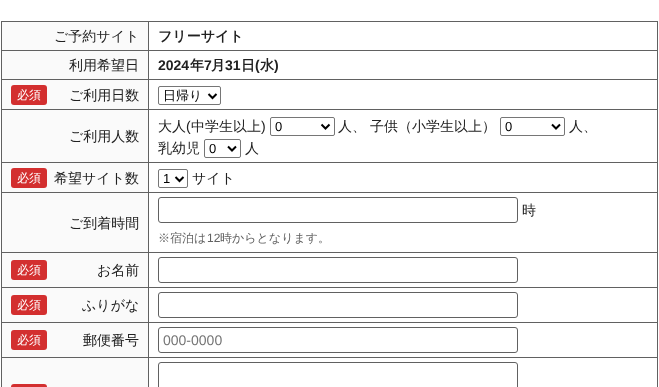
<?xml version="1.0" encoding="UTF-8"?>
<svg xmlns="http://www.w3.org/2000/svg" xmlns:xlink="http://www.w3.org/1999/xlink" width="659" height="387">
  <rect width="100%" height="100%" fill="#ffffff" />
  <rect x="2" y="22" width="146" height="28" fill="#fafafa" />
  <rect x="148" y="21" width="510" height="1" fill="#616161" />
  <rect x="148" y="50" width="510" height="1" fill="#616161" />
  <rect x="148" y="79" width="510" height="1" fill="#616161" />
  <rect x="148" y="109" width="510" height="1" fill="#616161" />
  <rect x="148" y="162" width="510" height="1" fill="#616161" />
  <rect x="148" y="192" width="510" height="1" fill="#616161" />
  <rect x="148" y="252" width="510" height="1" fill="#616161" />
  <rect x="148" y="287" width="510" height="1" fill="#616161" />
  <rect x="148" y="322" width="510" height="1" fill="#616161" />
  <rect x="148" y="357" width="510" height="1" fill="#616161" />
  <rect x="148" y="357" width="1" height="30" fill="#616161" />
  <rect x="1" y="357" width="148" height="1" fill="#616161" />
  <rect x="148" y="322" width="1" height="36" fill="#616161" />
  <rect x="1" y="322" width="148" height="1" fill="#616161" />
  <rect x="148" y="287" width="1" height="36" fill="#616161" />
  <rect x="1" y="287" width="148" height="1" fill="#616161" />
  <rect x="148" y="252" width="1" height="36" fill="#616161" />
  <rect x="1" y="252" width="148" height="1" fill="#616161" />
  <rect x="148" y="192" width="1" height="61" fill="#616161" />
  <rect x="1" y="192" width="148" height="1" fill="#616161" />
  <rect x="148" y="162" width="1" height="31" fill="#616161" />
  <rect x="1" y="162" width="148" height="1" fill="#616161" />
  <rect x="148" y="109" width="1" height="54" fill="#616161" />
  <rect x="1" y="109" width="148" height="1" fill="#616161" />
  <rect x="148" y="79" width="1" height="31" fill="#616161" />
  <rect x="1" y="79" width="148" height="1" fill="#616161" />
  <rect x="148" y="50" width="1" height="30" fill="#616161" />
  <rect x="1" y="50" width="148" height="1" fill="#616161" />
  <rect x="148" y="21" width="1" height="30" fill="#616161" />
  <rect x="1" y="21" width="148" height="1" fill="#616161" />
  <rect x="1" y="357" width="1" height="30" fill="#616161" />
  <rect x="1" y="322" width="1" height="36" fill="#616161" />
  <rect x="1" y="287" width="1" height="36" fill="#616161" />
  <rect x="1" y="252" width="1" height="36" fill="#616161" />
  <rect x="1" y="192" width="1" height="61" fill="#616161" />
  <rect x="1" y="162" width="1" height="31" fill="#616161" />
  <rect x="1" y="109" width="1" height="54" fill="#616161" />
  <rect x="1" y="79" width="1" height="31" fill="#616161" />
  <rect x="1" y="50" width="1" height="30" fill="#616161" />
  <rect x="1" y="21" width="1" height="30" fill="#616161" />
  <rect x="657" y="357" width="1" height="30" fill="#616161" />
  <rect x="657" y="322" width="1" height="36" fill="#616161" />
  <rect x="657" y="287" width="1" height="36" fill="#616161" />
  <rect x="657" y="252" width="1" height="36" fill="#616161" />
  <rect x="657" y="192" width="1" height="61" fill="#616161" />
  <rect x="657" y="162" width="1" height="31" fill="#616161" />
  <rect x="657" y="109" width="1" height="54" fill="#616161" />
  <rect x="657" y="79" width="1" height="31" fill="#616161" />
  <rect x="657" y="50" width="1" height="30" fill="#616161" />
  <rect x="657" y="21" width="1" height="30" fill="#616161" />
  <rect x="2" y="51" width="146" height="28" fill="#fafafa" />
  <rect x="2" y="80" width="146" height="29" fill="#fafafa" />
  <rect x="11" y="85" width="36" height="20" rx="3" fill="#d32f2f" />
  <rect x="158.5" y="86.5" width="62" height="18" rx="1.5" fill="none" stroke="#767676" />
  <path d="M 208.5 94 l 4 4 l 4 -4" fill="none" stroke="#000000" stroke-width="2" />
  <rect x="2" y="110" width="146" height="52" fill="#fafafa" />
  <rect x="270.5" y="117.5" width="64" height="18" rx="1.5" fill="none" stroke="#767676" />
  <path d="M 321.5 124.5 l 4 4 l 4 -4" fill="none" stroke="#000000" stroke-width="2" />
  <rect x="500.5" y="117.5" width="64" height="18" rx="1.5" fill="none" stroke="#767676" />
  <path d="M 552 124.5 l 4 4 l 4 -4" fill="none" stroke="#000000" stroke-width="2" />
  <rect x="204.5" y="139.5" width="36" height="18" rx="1.5" fill="none" stroke="#767676" />
  <path d="M 228 146.5 l 4 4 l 4 -4" fill="none" stroke="#000000" stroke-width="2" />
  <rect x="2" y="163" width="146" height="29" fill="#fafafa" />
  <rect x="11" y="168" width="36" height="20" rx="3" fill="#d32f2f" />
  <rect x="158.5" y="169.5" width="29" height="18" rx="1.5" fill="none" stroke="#767676" />
  <path d="M 175.5 177 l 4 4 l 4 -4" fill="none" stroke="#000000" stroke-width="2" />
  <rect x="2" y="193" width="146" height="59" fill="#fafafa" />
  <rect x="158.5" y="197.5" width="359" height="25" rx="2.5" fill="none" stroke="#616161" />
  <rect x="2" y="253" width="146" height="34" fill="#fafafa" />
  <rect x="11" y="260" width="36" height="20" rx="3" fill="#d32f2f" />
  <rect x="158.5" y="257.5" width="359" height="25" rx="2.5" fill="none" stroke="#616161" />
  <rect x="2" y="288" width="146" height="34" fill="#fafafa" />
  <rect x="11" y="295" width="36" height="20" rx="3" fill="#d32f2f" />
  <rect x="158.5" y="292.5" width="359" height="25" rx="2.5" fill="none" stroke="#616161" />
  <rect x="2" y="323" width="146" height="34" fill="#fafafa" />
  <rect x="11" y="330" width="36" height="20" rx="3" fill="#d32f2f" />
  <rect x="158.5" y="327.5" width="359" height="25" rx="2.5" fill="none" stroke="#616161" />
  <rect x="2" y="358" width="146" height="29" fill="#fafafa" />
  <rect x="11" y="384" width="36" height="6" rx="3" fill="#d32f2f" />
  <rect x="158.5" y="362.5" width="359" height="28" rx="2.5" fill="none" stroke="#616161" />
  <text x="54" y="41" style="font-family: WenQuanYi Zen Hei; font-size: 14px; font-weight: 500; fill: #212121">ご予約サイト</text>
  <text x="158" y="41" style="font-family: WenQuanYi Zen Hei; font-size: 14px; font-weight: bold; fill: #212121">フリーサイト</text>
  <text x="69" y="70" style="font-family: WenQuanYi Zen Hei; font-size: 14px; font-weight: 500; fill: #212121">利用希望日</text>
  <text x="158" y="70" style="font-family: Liberation Sans; font-size: 14px; font-weight: bold; fill: #212121">2024</text>
  <text x="190" y="70" style="font-family: WenQuanYi Zen Hei; font-size: 14px; font-weight: bold; fill: #212121">年</text>
  <text x="204" y="70" style="font-family: Liberation Sans; font-size: 14px; font-weight: bold; fill: #212121">7</text>
  <text x="211" y="70" style="font-family: WenQuanYi Zen Hei; font-size: 14px; font-weight: bold; fill: #212121">月</text>
  <text x="225" y="70" style="font-family: Liberation Sans; font-size: 14px; font-weight: bold; fill: #212121">31</text>
  <text x="241" y="70" style="font-family: WenQuanYi Zen Hei; font-size: 14px; font-weight: bold; fill: #212121">日</text>
  <text x="255" y="70" style="font-family: Liberation Sans; font-size: 14px; font-weight: bold; fill: #212121">(</text>
  <text x="260" y="70" style="font-family: WenQuanYi Zen Hei; font-size: 14px; font-weight: bold; fill: #212121">水</text>
  <text x="274" y="70" style="font-family: Liberation Sans; font-size: 14px; font-weight: bold; fill: #212121">)</text>
  <text x="17" y="99" style="font-family: WenQuanYi Zen Hei; font-size: 12px; font-weight: 500; fill: #ffffff">必須</text>
  <text x="69" y="100" style="font-family: WenQuanYi Zen Hei; font-size: 14px; font-weight: 500; fill: #212121">ご利用日数</text>
  <text x="163" y="100" style="font-family: WenQuanYi Zen Hei; font-size: 13px; font-weight: 500; fill: #000000">日帰り</text>
  <text x="69" y="141" style="font-family: WenQuanYi Zen Hei; font-size: 14px; font-weight: 500; fill: #212121">ご利用人数</text>
  <text x="158" y="131" style="font-family: WenQuanYi Zen Hei; font-size: 14px; font-weight: 500; fill: #212121">大人</text>
  <text x="186" y="131" style="font-family: Liberation Sans; font-size: 14px; fill: #212121">(</text>
  <text x="191" y="131" style="font-family: WenQuanYi Zen Hei; font-size: 14px; font-weight: 500; fill: #212121">中学生以上</text>
  <text x="261" y="131" style="font-family: Liberation Sans; font-size: 14px; fill: #212121">)</text>
  <text x="275" y="131" style="font-family: Liberation Sans; font-size: 13px; fill: #000000">0</text>
  <text x="338" y="131" style="font-family: WenQuanYi Zen Hei; font-size: 14px; font-weight: 500; fill: #212121">人、</text>
  <text x="370" y="131" style="font-family: WenQuanYi Zen Hei; font-size: 14px; font-weight: 500; fill: #212121">子供（小学生以上）</text>
  <text x="505" y="131" style="font-family: Liberation Sans; font-size: 13px; fill: #000000">0</text>
  <text x="569" y="131" style="font-family: WenQuanYi Zen Hei; font-size: 14px; font-weight: 500; fill: #212121">人、</text>
  <text x="158" y="153" style="font-family: WenQuanYi Zen Hei; font-size: 14px; font-weight: 500; fill: #212121">乳幼児</text>
  <text x="209" y="153" style="font-family: Liberation Sans; font-size: 13px; fill: #000000">0</text>
  <text x="245" y="153" style="font-family: WenQuanYi Zen Hei; font-size: 14px; font-weight: 500; fill: #212121">人</text>
  <text x="17" y="182" style="font-family: WenQuanYi Zen Hei; font-size: 12px; font-weight: 500; fill: #ffffff">必須</text>
  <text x="54" y="183" style="font-family: WenQuanYi Zen Hei; font-size: 14px; font-weight: 500; fill: #212121">希望サイト数</text>
  <text x="163" y="183" style="font-family: Liberation Sans; font-size: 13px; fill: #000000">1</text>
  <text x="192" y="183" style="font-family: WenQuanYi Zen Hei; font-size: 14px; font-weight: 500; fill: #212121">サイト</text>
  <text x="69" y="228" style="font-family: WenQuanYi Zen Hei; font-size: 14px; font-weight: 500; fill: #212121">ご到着時間</text>
  <text x="522" y="215" style="font-family: WenQuanYi Zen Hei; font-size: 14px; font-weight: 500; fill: #212121">時</text>
  <text x="158" y="242" style="font-family: WenQuanYi Zen Hei; font-size: 12px; font-weight: 500; fill: #616161">※宿泊は</text>
  <text x="207" y="242" style="font-family: Liberation Sans; font-size: 12px; fill: #616161">12</text>
  <text x="220" y="242" style="font-family: WenQuanYi Zen Hei; font-size: 12px; font-weight: 500; fill: #616161">時からとなります。</text>
  <text x="17" y="274" style="font-family: WenQuanYi Zen Hei; font-size: 12px; font-weight: 500; fill: #ffffff">必須</text>
  <text x="97" y="275" style="font-family: WenQuanYi Zen Hei; font-size: 14px; font-weight: 500; fill: #212121">お名前</text>
  <text x="17" y="309" style="font-family: WenQuanYi Zen Hei; font-size: 12px; font-weight: 500; fill: #ffffff">必須</text>
  <text x="82" y="310" style="font-family: WenQuanYi Zen Hei; font-size: 14px; font-weight: 500; fill: #212121">ふりがな</text>
  <text x="17" y="344" style="font-family: WenQuanYi Zen Hei; font-size: 12px; font-weight: 500; fill: #ffffff">必須</text>
  <text x="83" y="345" style="font-family: WenQuanYi Zen Hei; font-size: 14px; font-weight: 500; fill: #212121">郵便番号</text>
  <text x="163" y="345" style="font-family: Liberation Sans; font-size: 14px; fill: #757575">000-0000</text>
</svg>
